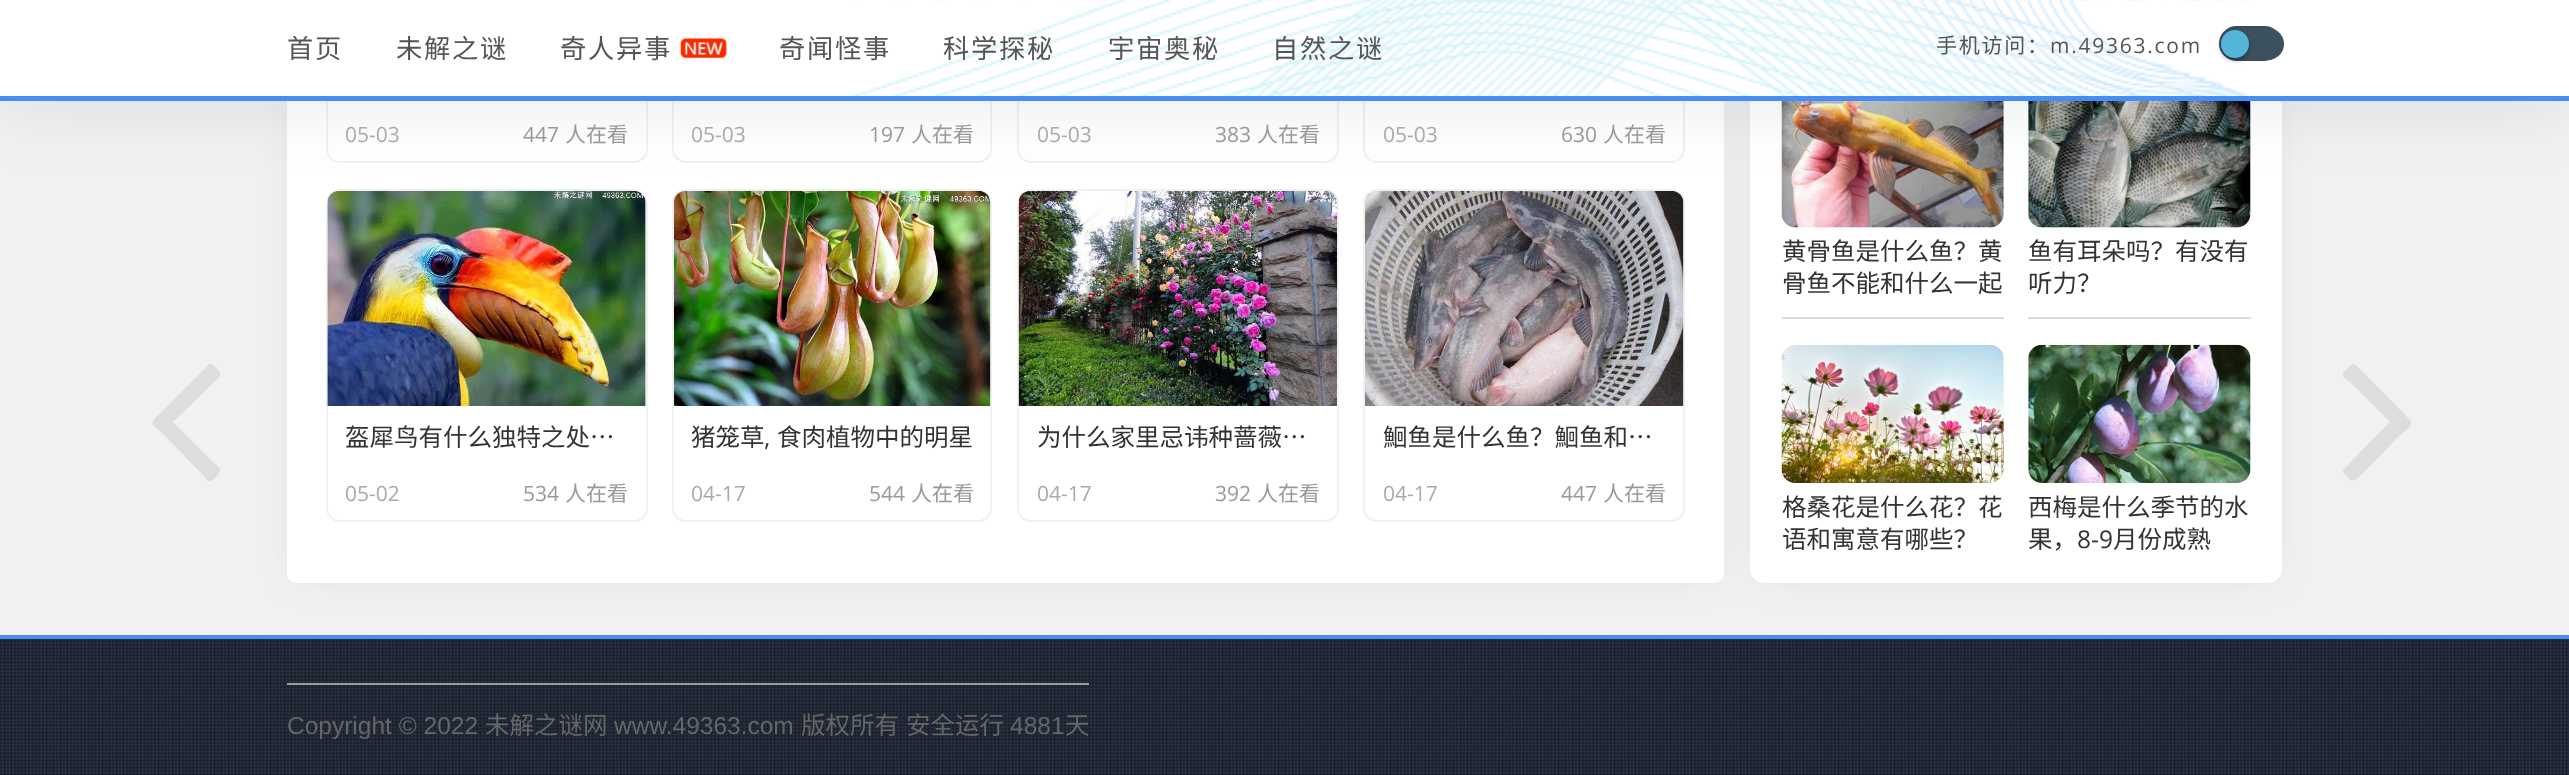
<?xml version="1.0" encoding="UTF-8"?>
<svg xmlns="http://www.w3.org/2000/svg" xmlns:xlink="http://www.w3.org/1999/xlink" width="2569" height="775">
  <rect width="100%" height="100%" fill="#f1f1f1" />
  <rect x="296" y="-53" width="1419" height="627" fill="#9e9e9e" fill-opacity="0.22" filter="blur(17.5px)" />
  <rect x="287" y="-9" width="1437" height="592" rx="9" fill="#ffffff" />
  <rect x="327" y="-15" width="320" height="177" rx="13" fill="none" stroke="#f1f1f1" stroke-width="2" />
  <rect x="673" y="-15" width="318" height="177" rx="13" fill="none" stroke="#f1f1f1" stroke-width="2" />
  <rect x="1018" y="-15" width="320" height="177" rx="13" fill="none" stroke="#f1f1f1" stroke-width="2" />
  <rect x="1364" y="-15" width="320" height="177" rx="13" fill="none" stroke="#f1f1f1" stroke-width="2" />
  <rect x="327" y="190" width="320" height="331" rx="13" fill="none" stroke="#f1f1f1" stroke-width="2" />
  <image x="327" y="191" width="319" height="215" xlink:href="image3.png" />
  <rect x="673" y="190" width="318" height="331" rx="13" fill="none" stroke="#f1f1f1" stroke-width="2" />
  <image x="674" y="191" width="317" height="215" xlink:href="image4.png" />
  <rect x="1018" y="190" width="320" height="331" rx="13" fill="none" stroke="#f1f1f1" stroke-width="2" />
  <image x="1018" y="191" width="319" height="215" xlink:href="image5.png" />
  <rect x="1364" y="190" width="320" height="331" rx="13" fill="none" stroke="#f1f1f1" stroke-width="2" />
  <image x="1365" y="191" width="319" height="215" xlink:href="image6.png" />
  <rect x="1759" y="-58" width="514" height="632" rx="5" fill="#9e9e9e" fill-opacity="0.22" filter="blur(17.5px)" />
  <rect x="1750" y="-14" width="532" height="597" rx="14" fill="#ffffff" />
  <rect x="1782" y="88" width="222" height="140" rx="14" fill="#f8f9fa" />
  <image x="1781" y="101" width="223" height="127" xlink:href="image7.png" />
  <rect x="2028" y="88" width="223" height="140" rx="14" fill="#f8f9fa" />
  <image x="2028" y="101" width="223" height="127" xlink:href="image8.png" />
  <rect y="9" width="2569" height="98" fill="#113a5d" fill-opacity="0.1" filter="blur(35px)" />
  <rect width="2569" height="96" fill="#ffffff" />
  <image x="852" y="0" width="1397" height="96" xlink:href="image1.png" />
  <image x="680" y="38" width="47" height="21" xlink:href="image2.png" />
  <rect x="2220" y="27" width="61" height="33" rx="16.5" fill="#3b5160" stroke="#394e5d" stroke-width="2" />
  <rect x="2221" y="28" width="63" height="32" rx="16" fill="#3b5160" />
  <rect x="2221" y="32" width="28" height="28" rx="14" fill="#000000" fill-opacity="0.4" filter="blur(2.5px)" />
  <circle cx="2235" cy="44" r="14" fill="#54b5db" />
  <rect y="96" width="2569" height="5" fill="#448ef6" />
  <path d="M 219 371 c 5 5 -6 12 -7 13 l -39 38 l 39 39 c 5 5 12 8 6 14 c -10 10 -8 7 -19 -4 l -36 -37 c -14 -13 -14 -10 0 -23 l 45 -46 c 4 -4 9 4 11 6 z" fill="#dddddd" />
  <path d="M 2410 420 c 5 5 -8 14 -9 14 l -36 37 c -1 0 -10 13 -15 9 l -3 -4 c -3 -2 -6 -5 -3 -7 l 46 -47 l -38 -38 c -8 -7 -13 -8 -5 -15 c 8 -9 7 -5 18 5 z" fill="#dddddd" />
  <rect x="1782" y="317" width="222" height="2" fill="#dddddd" />
  <rect x="2028" y="317" width="223" height="2" fill="#dddddd" />
  <rect x="1782" y="345" width="222" height="138" rx="14" fill="#f8f9fa" />
  <image x="1781" y="344" width="223" height="139" xlink:href="image9.png" />
  <rect x="2028" y="345" width="223" height="138" rx="14" fill="#f8f9fa" />
  <image x="2028" y="344" width="223" height="139" xlink:href="image10.png" />
  <image x="0" y="639" width="2569" height="136" xlink:href="image11.png" />
  <rect y="635" width="2569" height="4" fill="#448ef6" />
  <rect x="287" y="683" width="802" height="2" fill="#999999" />
  <text x="287" y="58" style="font-family: Noto Sans CJK SC; font-size: 26.25px; letter-spacing: 1.75px; fill: #555555">首页</text>
  <text x="396" y="58" style="font-family: Noto Sans CJK SC; font-size: 26.25px; letter-spacing: 1.75px; fill: #555555">未解之谜</text>
  <text x="560" y="58" style="font-family: Noto Sans CJK SC; font-size: 26.25px; letter-spacing: 1.75px; fill: #555555">奇人异事</text>
  <text x="779" y="58" style="font-family: Noto Sans CJK SC; font-size: 26.25px; letter-spacing: 1.75px; fill: #555555">奇闻怪事</text>
  <text x="943" y="58" style="font-family: Noto Sans CJK SC; font-size: 26.25px; letter-spacing: 1.75px; fill: #555555">科学探秘</text>
  <text x="1108" y="58" style="font-family: Noto Sans CJK SC; font-size: 26.25px; letter-spacing: 1.75px; fill: #555555">宇宙奥秘</text>
  <text x="1272" y="58" style="font-family: Noto Sans CJK SC; font-size: 26.25px; letter-spacing: 1.75px; fill: #555555">自然之谜</text>
  <text x="1936" y="53" style="font-family: Noto Sans CJK SC; font-size: 21px; letter-spacing: 1.75px; fill: #555555">手机访问：</text>
  <text x="2050" y="53" style="font-family: Open Sans; font-size: 21px; letter-spacing: 1.75px; fill: #555555">m.49363.com</text>
  <text x="345" y="142" style="font-family: Open Sans; font-size: 21px; fill: #aaaaaa">05-03</text>
  <text x="523" y="142" style="font-family: Open Sans; font-size: 21px; fill: #999999">447</text>
  <text x="565" y="142" style="font-family: Noto Sans CJK SC; font-size: 21px; fill: #999999">人在看</text>
  <text x="691" y="142" style="font-family: Open Sans; font-size: 21px; fill: #aaaaaa">05-03</text>
  <text x="869" y="142" style="font-family: Open Sans; font-size: 21px; fill: #999999">197</text>
  <text x="911" y="142" style="font-family: Noto Sans CJK SC; font-size: 21px; fill: #999999">人在看</text>
  <text x="1037" y="142" style="font-family: Open Sans; font-size: 21px; fill: #aaaaaa">05-03</text>
  <text x="1215" y="142" style="font-family: Open Sans; font-size: 21px; fill: #999999">383</text>
  <text x="1257" y="142" style="font-family: Noto Sans CJK SC; font-size: 21px; fill: #999999">人在看</text>
  <text x="1383" y="142" style="font-family: Open Sans; font-size: 21px; fill: #aaaaaa">05-03</text>
  <text x="1561" y="142" style="font-family: Open Sans; font-size: 21px; fill: #999999">630</text>
  <text x="1603" y="142" style="font-family: Noto Sans CJK SC; font-size: 21px; fill: #999999">人在看</text>
  <text x="345" y="446" style="font-family: Noto Sans CJK SC; font-size: 24.5px; fill: #333333">盔犀鸟有什么独特之处…</text>
  <text x="345" y="501" style="font-family: Open Sans; font-size: 21px; fill: #aaaaaa">05-02</text>
  <text x="523" y="501" style="font-family: Open Sans; font-size: 21px; fill: #999999">534</text>
  <text x="565" y="501" style="font-family: Noto Sans CJK SC; font-size: 21px; fill: #999999">人在看</text>
  <text x="691" y="446" style="font-family: Noto Sans CJK SC; font-size: 24.5px; fill: #333333">猪笼草</text>
  <text x="764" y="446" style="font-family: Open Sans; font-size: 24.5px; fill: #333333">,</text>
  <text x="777" y="446" style="font-family: Noto Sans CJK SC; font-size: 24.5px; fill: #333333">食肉植物中的明星</text>
  <text x="691" y="501" style="font-family: Open Sans; font-size: 21px; fill: #aaaaaa">04-17</text>
  <text x="869" y="501" style="font-family: Open Sans; font-size: 21px; fill: #999999">544</text>
  <text x="911" y="501" style="font-family: Noto Sans CJK SC; font-size: 21px; fill: #999999">人在看</text>
  <text x="1037" y="446" style="font-family: Noto Sans CJK SC; font-size: 24.5px; fill: #333333">为什么家里忌讳种蔷薇…</text>
  <text x="1037" y="501" style="font-family: Open Sans; font-size: 21px; fill: #aaaaaa">04-17</text>
  <text x="1215" y="501" style="font-family: Open Sans; font-size: 21px; fill: #999999">392</text>
  <text x="1257" y="501" style="font-family: Noto Sans CJK SC; font-size: 21px; fill: #999999">人在看</text>
  <text x="1383" y="446" style="font-family: Noto Sans CJK SC; font-size: 24.5px; fill: #333333">鮰鱼是什么鱼？鮰鱼和…</text>
  <text x="1383" y="501" style="font-family: Open Sans; font-size: 21px; fill: #aaaaaa">04-17</text>
  <text x="1561" y="501" style="font-family: Open Sans; font-size: 21px; fill: #999999">447</text>
  <text x="1603" y="501" style="font-family: Noto Sans CJK SC; font-size: 21px; fill: #999999">人在看</text>
  <text x="1782" y="260" style="font-family: Noto Sans CJK SC; font-size: 24.5px; fill: #333333">黄骨鱼是什么鱼？黄</text>
  <text x="1782" y="292" style="font-family: Noto Sans CJK SC; font-size: 24.5px; fill: #333333">骨鱼不能和什么一起</text>
  <text x="2028" y="260" style="font-family: Noto Sans CJK SC; font-size: 24.5px; fill: #333333">鱼有耳朵吗？有没有</text>
  <text x="2028" y="292" style="font-family: Noto Sans CJK SC; font-size: 24.5px; fill: #333333">听力？</text>
  <text x="1782" y="516" style="font-family: Noto Sans CJK SC; font-size: 24.5px; fill: #333333">格桑花是什么花？花</text>
  <text x="1782" y="548" style="font-family: Noto Sans CJK SC; font-size: 24.5px; fill: #333333">语和寓意有哪些？</text>
  <text x="2028" y="516" style="font-family: Noto Sans CJK SC; font-size: 24.5px; fill: #333333">西梅是什么季节的水</text>
  <text x="2028" y="548" style="font-family: Noto Sans CJK SC; font-size: 24.5px; fill: #333333">果，</text>
  <text x="2077" y="548" style="font-family: Open Sans; font-size: 24.5px; fill: #333333">8-9</text>
  <text x="2113" y="548" style="font-family: Noto Sans CJK SC; font-size: 24.5px; fill: #333333">月份成熟</text>
  <text x="287" y="734" style="font-family: Liberation Sans; font-size: 24.5px; fill: #666666">Copyright © 2022</text>
  <text x="485" y="734" style="font-family: Noto Sans CJK SC; font-size: 24.5px; fill: #666666">未解之谜网</text>
  <text x="614" y="734" style="font-family: Liberation Sans; font-size: 24.5px; fill: #666666">www.49363.com</text>
  <text x="801" y="734" style="font-family: Noto Sans CJK SC; font-size: 24.5px; fill: #666666">版权所有</text>
  <text x="906" y="734" style="font-family: Noto Sans CJK SC; font-size: 24.5px; fill: #666666">安全运行</text>
  <text x="1010" y="734" style="font-family: Liberation Sans; font-size: 24.5px; fill: #666666">4881</text>
  <text x="1065" y="734" style="font-family: Noto Sans CJK SC; font-size: 24.5px; fill: #666666">天</text>
</svg>
